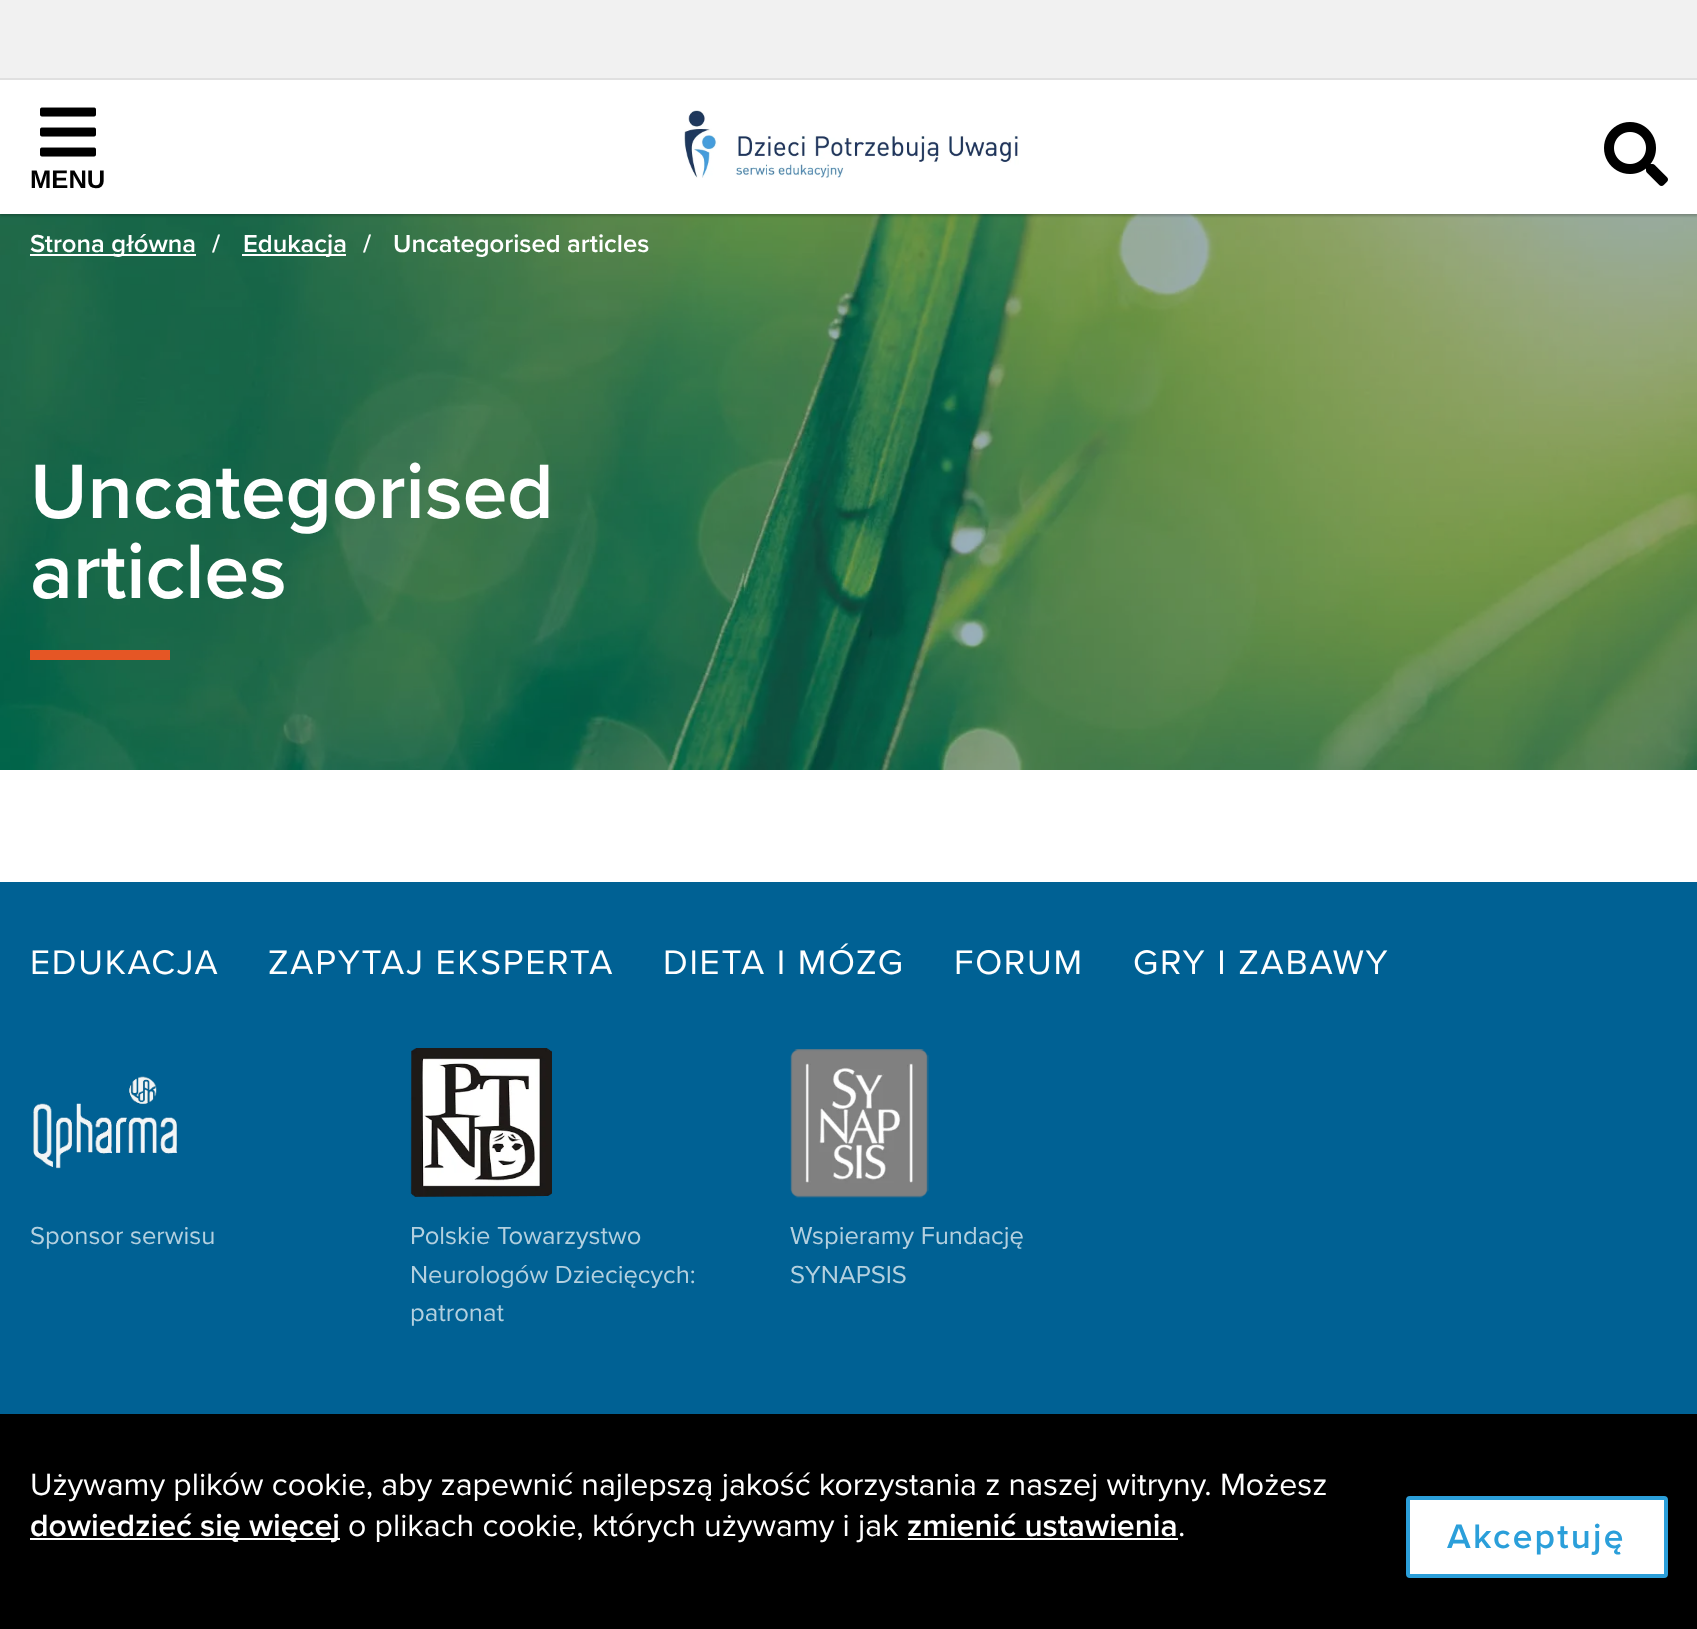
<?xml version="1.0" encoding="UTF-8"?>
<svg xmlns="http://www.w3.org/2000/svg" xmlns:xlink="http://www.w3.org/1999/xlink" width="1697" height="1629">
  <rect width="100%" height="100%" fill="#ffffff" />
  <image x="0" y="214" width="1697" height="556" xlink:href="image4.png" />
  <rect y="2" width="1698" height="214" fill="#000000" fill-opacity="0.2" filter="blur(1px)" />
  <rect y="80" width="1697" height="134" fill="#ffffff" />
  <rect width="1697" height="78" fill="#f1f1f1" />
  <rect y="78" width="1697" height="2" fill="#e0e0e0" />
  <image x="1604" y="122" width="64" height="64" xlink:href="image1.png" />
  <image x="684" y="110" width="335" height="68" xlink:href="image2.png" />
  <image x="40" y="107" width="56" height="50" xlink:href="image3.png" />
  <rect x="30" y="254" width="166" height="2" fill="#ffffff" />
  <rect x="242" y="254" width="104" height="2" fill="#ffffff" />
  <rect x="30" y="650" width="140" height="10" fill="#e55625" />
  <rect y="882" width="1697" height="532" fill="#006194" />
  <image x="33" y="1076" width="145" height="93" xlink:href="image5.png" />
  <image x="410" y="1048" width="142" height="149" xlink:href="image6.png" />
  <image x="790" y="1049" width="139" height="149" xlink:href="image7.png" />
  <rect y="1414" width="1697" height="215" fill="#000000" />
  <rect x="30" y="1538" width="310" height="2" fill="#ffffff" />
  <rect x="908" y="1538" width="270" height="2" fill="#ffffff" />
  <rect x="1408" y="1498" width="258" height="78" rx="2" fill="#ffffff" stroke="#2b9fda" stroke-width="4" />
  <text x="30" y="188" style="font-family: Liberation Sans; font-size: 25.6px; font-weight: bold; fill: #000000">MENU</text>
  <text x="30" y="252" style="font-family: Proxima Nova; font-size: 25.6px; font-weight: 600; fill: #ffffff">Strona główna</text>
  <text x="212" y="252" style="font-family: Proxima Nova; font-size: 25.6px; font-weight: 600; fill: #ffffff">/</text>
  <text x="243" y="252" style="font-family: Proxima Nova; font-size: 25.6px; font-weight: 600; fill: #ffffff">Edukacja</text>
  <text x="363" y="252" style="font-family: Proxima Nova; font-size: 25.6px; font-weight: 600; fill: #ffffff">/</text>
  <text x="393" y="252" style="font-family: Proxima Nova; font-size: 25.6px; font-weight: 600; fill: #ffffff">Uncategorised articles</text>
  <text x="30" y="518" style="font-family: Proxima Nova; font-size: 80px; font-weight: 600; fill: #ffffff">Uncategorised</text>
  <text x="30" y="598" style="font-family: Proxima Nova; font-size: 80px; font-weight: 600; fill: #ffffff">articles</text>
  <text x="30" y="974" style="font-family: Proxima Nova; font-size: 35.25px; letter-spacing: 1.75px; fill: #ffffff">EDUKACJA</text>
  <text x="268" y="974" style="font-family: Proxima Nova; font-size: 35.25px; letter-spacing: 1.75px; fill: #ffffff">ZAPYTAJ EKSPERTA</text>
  <text x="663" y="974" style="font-family: Proxima Nova; font-size: 35.25px; letter-spacing: 1.75px; fill: #ffffff">DIETA I MÓZG</text>
  <text x="954" y="974" style="font-family: Proxima Nova; font-size: 35.25px; letter-spacing: 1.75px; fill: #ffffff">FORUM</text>
  <text x="1133" y="974" style="font-family: Proxima Nova; font-size: 35.25px; letter-spacing: 1.75px; fill: #ffffff">GRY I ZABAWY</text>
  <text x="30" y="1244" style="font-family: Proxima Nova; font-size: 25.6px; fill: #b3d0df">Sponsor serwisu</text>
  <text x="410" y="1244" style="font-family: Proxima Nova; font-size: 25.6px; fill: #b3d0df">Polskie Towarzystwo</text>
  <text x="410" y="1283" style="font-family: Proxima Nova; font-size: 25.6px; fill: #b3d0df">Neurologów Dziecięcych:</text>
  <text x="410" y="1321" style="font-family: Proxima Nova; font-size: 25.6px; fill: #b3d0df">patronat</text>
  <text x="790" y="1244" style="font-family: Proxima Nova; font-size: 25.6px; fill: #b3d0df">Wspieramy Fundację</text>
  <text x="790" y="1283" style="font-family: Proxima Nova; font-size: 25.6px; fill: #b3d0df">SYNAPSIS</text>
  <text x="30" y="1495" style="font-family: Proxima Nova; font-size: 32px; fill: #ffffff">Używamy plików cookie, aby zapewnić najlepszą jakość korzystania z naszej witryny. Możesz</text>
  <text x="30" y="1536" style="font-family: Proxima Nova; font-size: 32px; font-weight: 600; fill: #ffffff">dowiedzieć się więcej</text>
  <text x="348" y="1536" style="font-family: Proxima Nova; font-size: 32px; fill: #ffffff">o plikach cookie, których używamy i jak</text>
  <text x="907" y="1536" style="font-family: Proxima Nova; font-size: 32px; font-weight: 600; fill: #ffffff">zmienić ustawienia</text>
  <text x="1178" y="1536" style="font-family: Proxima Nova; font-size: 32px; fill: #ffffff">.</text>
  <text x="1447" y="1548" style="font-family: Proxima Nova; font-size: 35.25px; font-weight: 600; letter-spacing: 2.25px; fill: #2b9fda">Akceptuję</text>
</svg>
